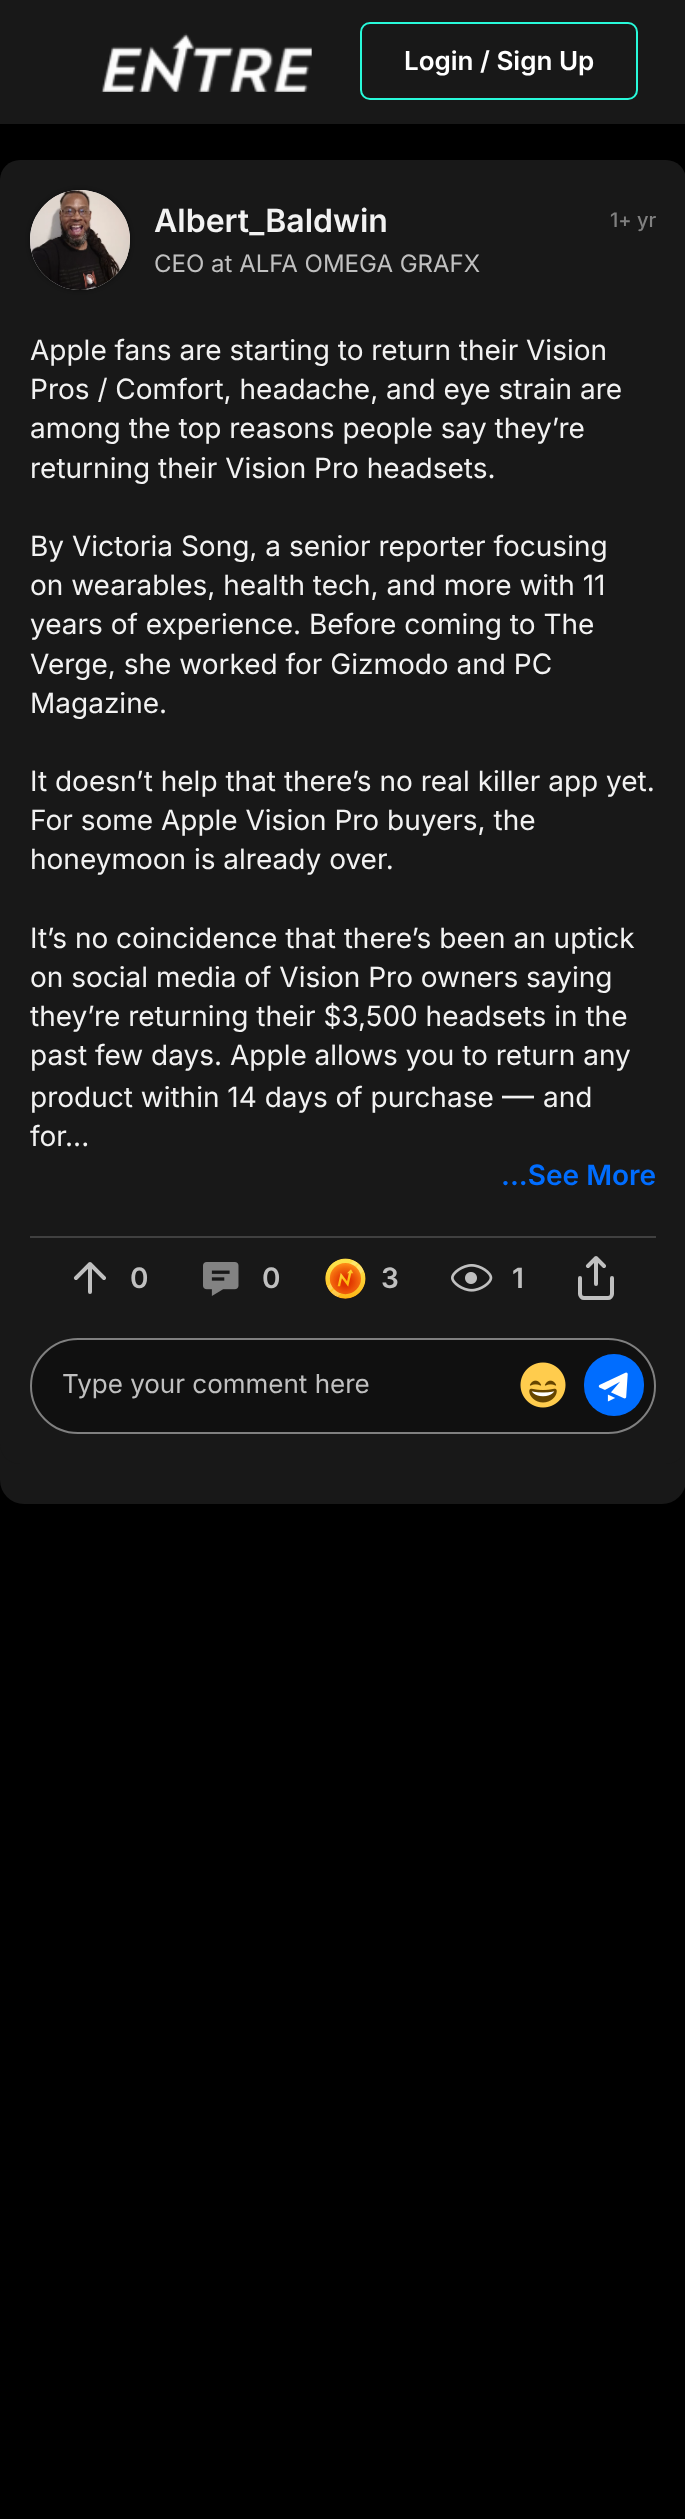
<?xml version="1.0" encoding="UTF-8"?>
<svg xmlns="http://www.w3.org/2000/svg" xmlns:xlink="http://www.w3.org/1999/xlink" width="685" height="2519">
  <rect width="100%" height="100%" fill="#000000" />
  <rect width="685" height="124" fill="#181818" />
  <image x="101" y="33" width="211" height="59" xlink:href="image1.png" />
  <rect x="361" y="23" width="276" height="76" rx="9" fill="none" stroke="#28f9da" stroke-width="2" />
  <rect y="160" width="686" height="1344" rx="24" fill="#181818" />
  <rect y="160" width="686" height="1304" rx="20" fill="#181818" />
  <rect x="30" y="190" width="100" height="100" rx="50" fill="#000000" fill-opacity="0.5" filter="blur(2px)" />
  <circle cx="80" cy="240" r="50" fill="#f2f2f2" />
  <image x="30" y="190" width="100" height="100" xlink:href="image2.png" />
  <rect x="30" y="1236" width="626" height="2" fill="#404040" />
  <path d="M 90 1292 v -28 m -14 14 l 14 -14 l 14 14" fill="none" stroke="#c0c0c0" stroke-width="4" stroke-linecap="round" stroke-linejoin="round" />
  <image x="203" y="1262" width="36" height="34" xlink:href="image3.png" />
  <image x="325" y="1258" width="41" height="41" xlink:href="image4.png" />
  <image x="451" y="1264" width="42" height="28" xlink:href="image5.png" />
  <path d="M 580 1278 v 16 c 0 2 2 4 4 4 h 24 c 2 0 4 -2 4 -4 v -16 m -8 -12 l -8 -8 l -8 8 m 8 -8 v 26" fill="none" stroke="#c0c0c0" stroke-width="4" stroke-linecap="round" stroke-linejoin="round" />
  <rect x="31" y="1339" width="624" height="94" rx="47" fill="#101010" stroke="#808080" stroke-width="2" />
  <image x="520" y="1362" width="46" height="46" xlink:href="image6.png" />
  <rect x="584" y="1354" width="60" height="62" rx="30" fill="#006dff" />
  <image x="598" y="1372" width="30" height="30" xlink:href="image7.png" />
  <text x="404" y="70" style="font-family: Inter; font-size: 26px; font-weight: 600; fill: #ffffff">Login / Sign Up</text>
  <text x="154" y="232" style="font-family: Inter; font-size: 32px; font-weight: 600; fill: #f2f2f2">Albert_Baldwin</text>
  <text x="154" y="272" style="font-family: Inter; font-size: 24px; fill: #c0c0c0">CEO at ALFA OMEGA GRAFX</text>
  <text x="610" y="227" style="font-family: Inter; font-size: 20px; font-weight: 500; fill: #808080">1+ yr</text>
  <text x="30" y="360" style="font-family: Inter; font-size: 28px; fill: #f2f2f2">Apple fans are starting to return their Vision</text>
  <text x="30" y="399" style="font-family: Inter; font-size: 28px; fill: #f2f2f2">Pros / Comfort, headache, and eye strain are</text>
  <text x="30" y="438" style="font-family: Inter; font-size: 28px; fill: #f2f2f2">among the top reasons people say they’re</text>
  <text x="30" y="478" style="font-family: Inter; font-size: 28px; fill: #f2f2f2">returning their Vision Pro headsets.</text>
  <text x="30" y="556" style="font-family: Inter; font-size: 28px; fill: #f2f2f2">By Victoria Song, a senior reporter focusing</text>
  <text x="30" y="595" style="font-family: Inter; font-size: 28px; fill: #f2f2f2">on wearables, health tech, and more with 11</text>
  <text x="30" y="634" style="font-family: Inter; font-size: 28px; fill: #f2f2f2">years of experience. Before coming to The</text>
  <text x="30" y="674" style="font-family: Inter; font-size: 28px; fill: #f2f2f2">Verge, she worked for Gizmodo and PC</text>
  <text x="30" y="713" style="font-family: Inter; font-size: 28px; fill: #f2f2f2">Magazine.</text>
  <text x="30" y="791" style="font-family: Inter; font-size: 28px; fill: #f2f2f2">It doesn’t help that there’s no real killer app yet.</text>
  <text x="30" y="830" style="font-family: Inter; font-size: 28px; fill: #f2f2f2">For some Apple Vision Pro buyers, the</text>
  <text x="30" y="869" style="font-family: Inter; font-size: 28px; fill: #f2f2f2">honeymoon is already over.</text>
  <text x="30" y="948" style="font-family: Inter; font-size: 28px; fill: #f2f2f2">It’s no coincidence that there’s been an uptick</text>
  <text x="30" y="987" style="font-family: Inter; font-size: 28px; fill: #f2f2f2">on social media of Vision Pro owners saying</text>
  <text x="30" y="1026" style="font-family: Inter; font-size: 28px; fill: #f2f2f2">they’re returning their $3,500 headsets in the</text>
  <text x="30" y="1065" style="font-family: Inter; font-size: 28px; fill: #f2f2f2">past few days. Apple allows you to return any</text>
  <text x="30" y="1107" style="font-family: Inter; font-size: 28px; fill: #f2f2f2">product within 14 days of purchase</text>
  <text x="502" y="1107" style="font-family: Inter; font-size: 32px; fill: #f2f2f2">—</text>
  <text x="543" y="1107" style="font-family: Inter; font-size: 28px; fill: #f2f2f2">and</text>
  <text x="30" y="1146" style="font-family: Inter; font-size: 28px; fill: #f2f2f2">for</text>
  <text x="65" y="1146" style="font-family: Inter; font-size: 28px; fill: #f2f2f2">...</text>
  <text x="501" y="1185" style="font-family: Inter; font-size: 28px; font-weight: 600; fill: #006dff">...See More</text>
  <text x="130" y="1288" style="font-family: Inter; font-size: 28px; font-weight: 600; fill: #c0c0c0">0</text>
  <text x="262" y="1288" style="font-family: Inter; font-size: 28px; font-weight: 600; fill: #c0c0c0">0</text>
  <text x="381" y="1288" style="font-family: Inter; font-size: 28px; font-weight: 600; fill: #c0c0c0">3</text>
  <text x="512" y="1288" style="font-family: Inter; font-size: 28px; font-weight: 600; fill: #c0c0c0">1</text>
  <text x="62" y="1393" style="font-family: Inter; font-size: 26px; fill: #c0c0c0">Type your comment here</text>
</svg>
